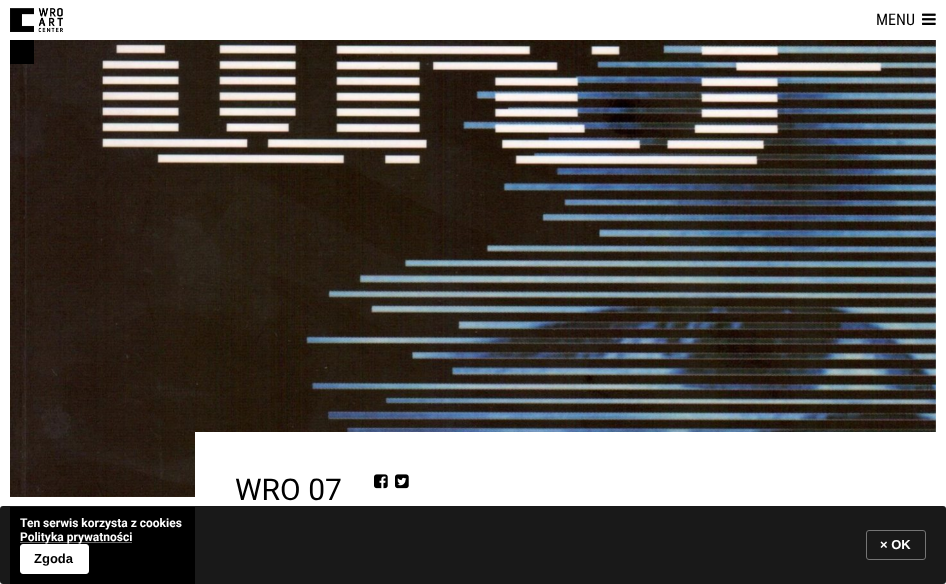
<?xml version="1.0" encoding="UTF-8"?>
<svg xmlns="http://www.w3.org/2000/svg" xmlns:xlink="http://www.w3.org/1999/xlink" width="946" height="584">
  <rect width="100%" height="100%" fill="#ffffff" />
  <image x="10" y="8" width="53" height="24" xlink:href="image1.png" />
  <image x="922" y="13" width="14" height="12" xlink:href="image2.png" />
  <image x="10" y="40" width="926" height="457" xlink:href="image3.png" />
  <rect x="10" y="40" width="24" height="24" fill="#000000" />
  <rect x="195" y="432" width="741" height="65" fill="#ffffff" />
  <image x="374" y="474" width="14" height="15" xlink:href="image4.png" />
  <image x="395" y="474" width="14" height="15" xlink:href="image5.png" />
  <rect x="10" y="507" width="185" height="77" fill="#000000" />
  <image x="84" y="534" width="6" height="10" xlink:href="image6.png" />
  <rect y="506" width="946" height="78" rx="3" fill="#000000" fill-opacity="0.9" />
  <rect x="20" y="542" width="112" height="1" fill="#ffffff" fill-opacity="0.4" />
  <rect x="20.5" y="544.5" width="68" height="29" rx="2.5" fill="#ffffff" stroke="#ffffff" />
  <rect x="866.5" y="530.5" width="59" height="29" rx="2.5" fill="none" stroke="#757575" />
  <text x="876" y="25" style="font-family: Roboto Condensed; font-size: 16px; fill: #000000">MENU</text>
  <text x="235" y="500" style="font-family: Roboto; font-size: 30px; fill: #000000">WRO 07</text>
  <text x="20" y="527" style="font-family: Roboto; font-size: 12px; font-weight: bold; fill: #ffffff">Ten serwis korzysta z cookies</text>
  <text x="20" y="541" style="font-family: Roboto; font-size: 12px; font-weight: bold; fill: #ffffff">Polityka prywatności</text>
  <text x="34" y="563" style="font-family: Liberation Sans; font-size: 13px; font-weight: bold; fill: #000000">Zgoda</text>
  <text x="880" y="549" style="font-family: Liberation Sans; font-size: 13px; font-weight: bold; fill: #ffffff">× OK</text>
</svg>
